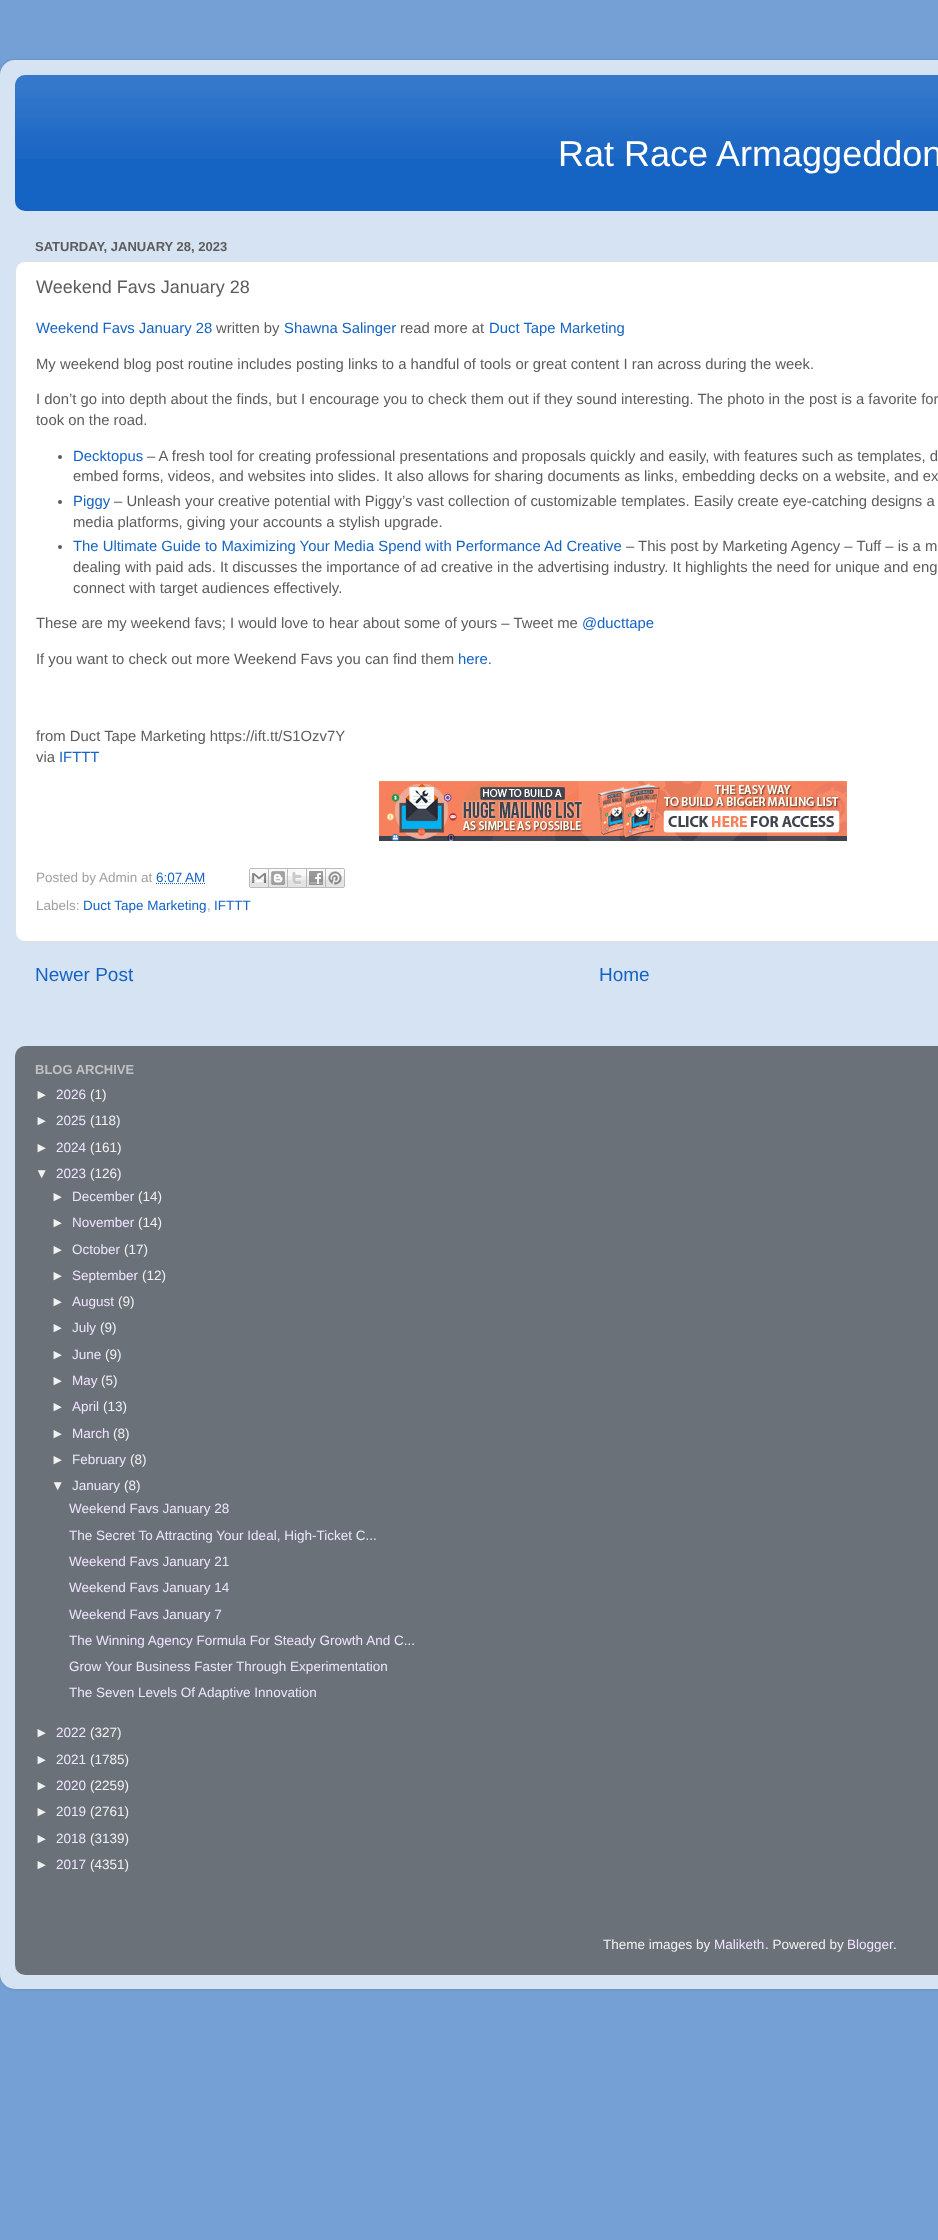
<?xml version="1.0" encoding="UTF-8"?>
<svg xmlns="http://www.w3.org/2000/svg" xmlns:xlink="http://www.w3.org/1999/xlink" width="938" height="2240">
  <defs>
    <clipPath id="clip1"><path d="M 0 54 h 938 v 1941 h -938 z m 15 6 h 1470 c 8.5 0 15 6.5 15 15 v 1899 c 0 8.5 -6.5 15 -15 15 h -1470 c -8.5 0 -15 -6.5 -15 -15 v -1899 c 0 -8.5 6.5 -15 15 -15 z" clip-rule="evenodd" /></clipPath>
  </defs>
  <rect width="100%" height="100%" fill="#75a0d5" />
  <g clip-path="url(#clip1)">
    <rect y="60" width="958" height="1929" rx="15" fill="#000000" fill-opacity="0.15" filter="blur(1.5px)" />
  </g>
  <image x="0" y="60" width="938" height="1929" xlink:href="image1.png" />
  <rect x="15" y="75" width="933" height="136" rx="10" fill="#1563c3" />
  <image x="15" y="75" width="923" height="84" xlink:href="image2.png" />
  <rect x="15.5" y="261.5" width="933" height="680" rx="9.5" fill="#ffffff" stroke="#e1e1e1" />
  <circle cx="60" cy="457" r="2" fill="#5c5c5c" />
  <circle cx="60" cy="502" r="2" fill="#5c5c5c" />
  <circle cx="60" cy="547" r="2" fill="#5c5c5c" />
  <image x="379" y="781" width="468" height="60" xlink:href="image3.png" />
  <path d="M 156 883.5 h 49.5" fill="none" stroke="#1563c3" stroke-dasharray="1 1" />
  <image x="249" y="868" width="20" height="20" xlink:href="image4.png" />
  <image x="269" y="868" width="19" height="20" xlink:href="image5.png" />
  <image x="288" y="868" width="19" height="20" xlink:href="image6.png" />
  <image x="307" y="868" width="19" height="20" xlink:href="image7.png" />
  <image x="326" y="868" width="19" height="20" xlink:href="image8.png" />
  <image x="15" y="1046" width="923" height="929" xlink:href="image9.png" />
  <text x="558" y="166" style="font-family: Liberation Sans; font-size: 36px; fill: #ffffff">Rat Race Armaggeddon</text>
  <text x="35" y="251" style="font-family: Liberation Sans; font-size: 13px; font-weight: bold; fill: #5c5c5c">SATURDAY, JANUARY 28, 2023</text>
  <text x="36" y="293" style="font-family: Liberation Sans; font-size: 18px; fill: #5c5c5c">Weekend Favs January 28</text>
  <text x="36" y="333" style="font-family: Liberation Sans; font-size: 14.85px; fill: #1563c3">Weekend Favs January 28</text>
  <text x="216" y="333" style="font-family: Liberation Sans; font-size: 14.85px; fill: #5c5c5c">written by</text>
  <text x="284" y="333" style="font-family: Liberation Sans; font-size: 14.85px; fill: #1563c3">Shawna Salinger</text>
  <text x="400" y="333" style="font-family: Liberation Sans; font-size: 14.85px; fill: #5c5c5c">read more at</text>
  <text x="489" y="333" style="font-family: Liberation Sans; font-size: 14.85px; fill: #1563c3">Duct Tape Marketing</text>
  <text x="36" y="369" style="font-family: Liberation Sans; font-size: 14.85px; fill: #5c5c5c">My weekend blog post routine includes posting links to a handful of tools or great content I ran across during the week.</text>
  <text x="36" y="404" style="font-family: Liberation Sans; font-size: 14.85px; fill: #5c5c5c">I don’t go into depth about the finds, but I encourage you to check them out if they sound interesting. The photo in the post is a favorite for</text>
  <text x="36" y="425" style="font-family: Liberation Sans; font-size: 14.85px; fill: #5c5c5c">took on the road.</text>
  <text x="73" y="461" style="font-family: Liberation Sans; font-size: 14.85px; fill: #1563c3">Decktopus</text>
  <text x="147" y="461" style="font-family: Liberation Sans; font-size: 14.85px; fill: #5c5c5c">– A fresh tool for creating professional presentations and proposals quickly and easily, with features such as templates, d</text>
  <text x="73" y="481" style="font-family: Liberation Sans; font-size: 14.85px; fill: #5c5c5c">embed forms, videos, and websites into slides. It also allows for sharing documents as links, embedding decks on a website, and ex</text>
  <text x="73" y="506" style="font-family: Liberation Sans; font-size: 14.85px; fill: #1563c3">Piggy</text>
  <text x="114" y="506" style="font-family: Liberation Sans; font-size: 14.85px; fill: #5c5c5c">– Unleash your creative potential with Piggy’s vast collection of customizable templates. Easily create eye-catching designs a</text>
  <text x="73" y="527" style="font-family: Liberation Sans; font-size: 14.85px; fill: #5c5c5c">media platforms, giving your accounts a stylish upgrade.</text>
  <text x="73" y="551" style="font-family: Liberation Sans; font-size: 14.85px; fill: #1563c3">The Ultimate Guide to Maximizing Your Media Spend with Performance Ad Creative</text>
  <text x="626" y="551" style="font-family: Liberation Sans; font-size: 14.85px; fill: #5c5c5c">– This post by Marketing Agency – Tuff – is a m</text>
  <text x="73" y="572" style="font-family: Liberation Sans; font-size: 14.85px; fill: #5c5c5c">dealing with paid ads. It discusses the importance of ad creative in the advertising industry. It highlights the need for unique and eng</text>
  <text x="73" y="593" style="font-family: Liberation Sans; font-size: 14.85px; fill: #5c5c5c">connect with target audiences effectively.</text>
  <text x="36" y="628" style="font-family: Liberation Sans; font-size: 14.85px; fill: #5c5c5c">These are my weekend favs; I would love to hear about some of yours – Tweet me</text>
  <text x="582" y="628" style="font-family: Liberation Sans; font-size: 14.85px; fill: #1563c3">@ducttape</text>
  <text x="36" y="664" style="font-family: Liberation Sans; font-size: 14.85px; fill: #5c5c5c">If you want to check out more Weekend Favs you can find them</text>
  <text x="458" y="664" style="font-family: Liberation Sans; font-size: 14.85px; fill: #1563c3">here.</text>
  <text x="36" y="741" style="font-family: Liberation Sans; font-size: 14.85px; fill: #5c5c5c">from Duct Tape Marketing https://ift.tt/S1Ozv7Y</text>
  <text x="36" y="762" style="font-family: Liberation Sans; font-size: 14.85px; fill: #5c5c5c">via</text>
  <text x="59" y="762" style="font-family: Liberation Sans; font-size: 14.85px; fill: #1563c3">IFTTT</text>
  <text x="36" y="882" style="font-family: Liberation Sans; font-size: 13.5px; fill: #a1a1a1">Posted by</text>
  <text x="99" y="882" style="font-family: Liberation Sans; font-size: 13.5px; fill: #a1a1a1">Admin at</text>
  <text x="156" y="882" style="font-family: Liberation Sans; font-size: 13.5px; fill: #1563c3">6:07 AM</text>
  <text x="36" y="910" style="font-family: Liberation Sans; font-size: 13.5px; fill: #a1a1a1">Labels:</text>
  <text x="83" y="910" style="font-family: Liberation Sans; font-size: 13.5px; fill: #1563c3">Duct Tape Marketing</text>
  <text x="207" y="910" style="font-family: Liberation Sans; font-size: 13.5px; fill: #a1a1a1">,</text>
  <text x="214" y="910" style="font-family: Liberation Sans; font-size: 13.5px; fill: #1563c3">IFTTT</text>
  <text x="35" y="981" style="font-family: Liberation Sans; font-size: 19px; fill: #1563c3">Newer Post</text>
  <text x="599" y="981" style="font-family: Liberation Sans; font-size: 19px; fill: #1563c3">Home</text>
  <text x="35" y="1074" style="font-family: Liberation Sans; font-size: 13px; font-weight: bold; fill: #c1c1c1">BLOG ARCHIVE</text>
  <text x="35" y="1099" style="font-family: Liberation Sans; font-size: 13.5px; fill: #f1f1f1">►</text>
  <text x="56" y="1099" style="font-family: Liberation Sans; font-size: 13.5px; fill: #efe4ff">2026</text>
  <text x="90" y="1099" style="font-family: Liberation Sans; font-size: 13.5px; fill: #f1f1f1">(1)</text>
  <text x="35" y="1125" style="font-family: Liberation Sans; font-size: 13.5px; fill: #f1f1f1">►</text>
  <text x="56" y="1125" style="font-family: Liberation Sans; font-size: 13.5px; fill: #efe4ff">2025</text>
  <text x="90" y="1125" style="font-family: Liberation Sans; font-size: 13.5px; fill: #f1f1f1">(118)</text>
  <text x="35" y="1152" style="font-family: Liberation Sans; font-size: 13.5px; fill: #f1f1f1">►</text>
  <text x="56" y="1152" style="font-family: Liberation Sans; font-size: 13.5px; fill: #efe4ff">2024</text>
  <text x="90" y="1152" style="font-family: Liberation Sans; font-size: 13.5px; fill: #f1f1f1">(161)</text>
  <text x="35" y="1178" style="font-family: Liberation Sans; font-size: 13.5px; fill: #f1f1f1">▼</text>
  <text x="56" y="1178" style="font-family: Liberation Sans; font-size: 13.5px; fill: #efe4ff">2023</text>
  <text x="90" y="1178" style="font-family: Liberation Sans; font-size: 13.5px; fill: #f1f1f1">(126)</text>
  <text x="51" y="1201" style="font-family: Liberation Sans; font-size: 13.5px; fill: #f1f1f1">►</text>
  <text x="72" y="1201" style="font-family: Liberation Sans; font-size: 13.5px; fill: #efe4ff">December</text>
  <text x="138" y="1201" style="font-family: Liberation Sans; font-size: 13.5px; fill: #f1f1f1">(14)</text>
  <text x="51" y="1227" style="font-family: Liberation Sans; font-size: 13.5px; fill: #f1f1f1">►</text>
  <text x="72" y="1227" style="font-family: Liberation Sans; font-size: 13.5px; fill: #efe4ff">November</text>
  <text x="138" y="1227" style="font-family: Liberation Sans; font-size: 13.5px; fill: #f1f1f1">(14)</text>
  <text x="51" y="1254" style="font-family: Liberation Sans; font-size: 13.5px; fill: #f1f1f1">►</text>
  <text x="72" y="1254" style="font-family: Liberation Sans; font-size: 13.5px; fill: #efe4ff">October</text>
  <text x="124" y="1254" style="font-family: Liberation Sans; font-size: 13.5px; fill: #f1f1f1">(17)</text>
  <text x="51" y="1280" style="font-family: Liberation Sans; font-size: 13.5px; fill: #f1f1f1">►</text>
  <text x="72" y="1280" style="font-family: Liberation Sans; font-size: 13.5px; fill: #efe4ff">September</text>
  <text x="142" y="1280" style="font-family: Liberation Sans; font-size: 13.5px; fill: #f1f1f1">(12)</text>
  <text x="51" y="1306" style="font-family: Liberation Sans; font-size: 13.5px; fill: #f1f1f1">►</text>
  <text x="72" y="1306" style="font-family: Liberation Sans; font-size: 13.5px; fill: #efe4ff">August</text>
  <text x="118" y="1306" style="font-family: Liberation Sans; font-size: 13.5px; fill: #f1f1f1">(9)</text>
  <text x="51" y="1332" style="font-family: Liberation Sans; font-size: 13.5px; fill: #f1f1f1">►</text>
  <text x="72" y="1332" style="font-family: Liberation Sans; font-size: 13.5px; fill: #efe4ff">July</text>
  <text x="100" y="1332" style="font-family: Liberation Sans; font-size: 13.5px; fill: #f1f1f1">(9)</text>
  <text x="51" y="1359" style="font-family: Liberation Sans; font-size: 13.5px; fill: #f1f1f1">►</text>
  <text x="72" y="1359" style="font-family: Liberation Sans; font-size: 13.5px; fill: #efe4ff">June</text>
  <text x="105" y="1359" style="font-family: Liberation Sans; font-size: 13.5px; fill: #f1f1f1">(9)</text>
  <text x="51" y="1385" style="font-family: Liberation Sans; font-size: 13.5px; fill: #f1f1f1">►</text>
  <text x="72" y="1385" style="font-family: Liberation Sans; font-size: 13.5px; fill: #efe4ff">May</text>
  <text x="101" y="1385" style="font-family: Liberation Sans; font-size: 13.5px; fill: #f1f1f1">(5)</text>
  <text x="51" y="1411" style="font-family: Liberation Sans; font-size: 13.5px; fill: #f1f1f1">►</text>
  <text x="72" y="1411" style="font-family: Liberation Sans; font-size: 13.5px; fill: #efe4ff">April</text>
  <text x="103" y="1411" style="font-family: Liberation Sans; font-size: 13.5px; fill: #f1f1f1">(13)</text>
  <text x="51" y="1438" style="font-family: Liberation Sans; font-size: 13.5px; fill: #f1f1f1">►</text>
  <text x="72" y="1438" style="font-family: Liberation Sans; font-size: 13.5px; fill: #efe4ff">March</text>
  <text x="113" y="1438" style="font-family: Liberation Sans; font-size: 13.5px; fill: #f1f1f1">(8)</text>
  <text x="51" y="1464" style="font-family: Liberation Sans; font-size: 13.5px; fill: #f1f1f1">►</text>
  <text x="72" y="1464" style="font-family: Liberation Sans; font-size: 13.5px; fill: #efe4ff">February</text>
  <text x="130" y="1464" style="font-family: Liberation Sans; font-size: 13.5px; fill: #f1f1f1">(8)</text>
  <text x="51" y="1490" style="font-family: Liberation Sans; font-size: 13.5px; fill: #f1f1f1">▼</text>
  <text x="72" y="1490" style="font-family: Liberation Sans; font-size: 13.5px; fill: #efe4ff">January</text>
  <text x="124" y="1490" style="font-family: Liberation Sans; font-size: 13.5px; fill: #f1f1f1">(8)</text>
  <text x="69" y="1513" style="font-family: Liberation Sans; font-size: 13.5px; fill: #efe4ff">Weekend Favs January 28</text>
  <text x="69" y="1540" style="font-family: Liberation Sans; font-size: 13.5px; fill: #efe4ff">The Secret To Attracting Your Ideal, High-Ticket C...</text>
  <text x="69" y="1566" style="font-family: Liberation Sans; font-size: 13.5px; fill: #efe4ff">Weekend Favs January 21</text>
  <text x="69" y="1592" style="font-family: Liberation Sans; font-size: 13.5px; fill: #efe4ff">Weekend Favs January 14</text>
  <text x="69" y="1619" style="font-family: Liberation Sans; font-size: 13.5px; fill: #efe4ff">Weekend Favs January 7</text>
  <text x="69" y="1645" style="font-family: Liberation Sans; font-size: 13.5px; fill: #efe4ff">The Winning Agency Formula For Steady Growth And C...</text>
  <text x="69" y="1671" style="font-family: Liberation Sans; font-size: 13.5px; fill: #efe4ff">Grow Your Business Faster Through Experimentation</text>
  <text x="69" y="1697" style="font-family: Liberation Sans; font-size: 13.5px; fill: #efe4ff">The Seven Levels Of Adaptive Innovation</text>
  <text x="35" y="1737" style="font-family: Liberation Sans; font-size: 13.5px; fill: #f1f1f1">►</text>
  <text x="56" y="1737" style="font-family: Liberation Sans; font-size: 13.5px; fill: #efe4ff">2022</text>
  <text x="90" y="1737" style="font-family: Liberation Sans; font-size: 13.5px; fill: #f1f1f1">(327)</text>
  <text x="35" y="1764" style="font-family: Liberation Sans; font-size: 13.5px; fill: #f1f1f1">►</text>
  <text x="56" y="1764" style="font-family: Liberation Sans; font-size: 13.5px; fill: #efe4ff">2021</text>
  <text x="90" y="1764" style="font-family: Liberation Sans; font-size: 13.5px; fill: #f1f1f1">(1785)</text>
  <text x="35" y="1790" style="font-family: Liberation Sans; font-size: 13.5px; fill: #f1f1f1">►</text>
  <text x="56" y="1790" style="font-family: Liberation Sans; font-size: 13.5px; fill: #efe4ff">2020</text>
  <text x="90" y="1790" style="font-family: Liberation Sans; font-size: 13.5px; fill: #f1f1f1">(2259)</text>
  <text x="35" y="1816" style="font-family: Liberation Sans; font-size: 13.5px; fill: #f1f1f1">►</text>
  <text x="56" y="1816" style="font-family: Liberation Sans; font-size: 13.5px; fill: #efe4ff">2019</text>
  <text x="90" y="1816" style="font-family: Liberation Sans; font-size: 13.5px; fill: #f1f1f1">(2761)</text>
  <text x="35" y="1843" style="font-family: Liberation Sans; font-size: 13.5px; fill: #f1f1f1">►</text>
  <text x="56" y="1843" style="font-family: Liberation Sans; font-size: 13.5px; fill: #efe4ff">2018</text>
  <text x="90" y="1843" style="font-family: Liberation Sans; font-size: 13.5px; fill: #f1f1f1">(3139)</text>
  <text x="35" y="1869" style="font-family: Liberation Sans; font-size: 13.5px; fill: #f1f1f1">►</text>
  <text x="56" y="1869" style="font-family: Liberation Sans; font-size: 13.5px; fill: #efe4ff">2017</text>
  <text x="90" y="1869" style="font-family: Liberation Sans; font-size: 13.5px; fill: #f1f1f1">(4351)</text>
  <text x="603" y="1949" style="font-family: Liberation Sans; font-size: 13.5px; fill: #f1f1f1">Theme images by</text>
  <text x="714" y="1949" style="font-family: Liberation Sans; font-size: 13.5px; fill: #efe4ff">Maliketh</text>
  <text x="765" y="1949" style="font-family: Liberation Sans; font-size: 13.5px; fill: #f1f1f1">. Powered by</text>
  <text x="847" y="1949" style="font-family: Liberation Sans; font-size: 13.5px; fill: #efe4ff">Blogger</text>
  <text x="893" y="1949" style="font-family: Liberation Sans; font-size: 13.5px; fill: #f1f1f1">.</text>
</svg>
